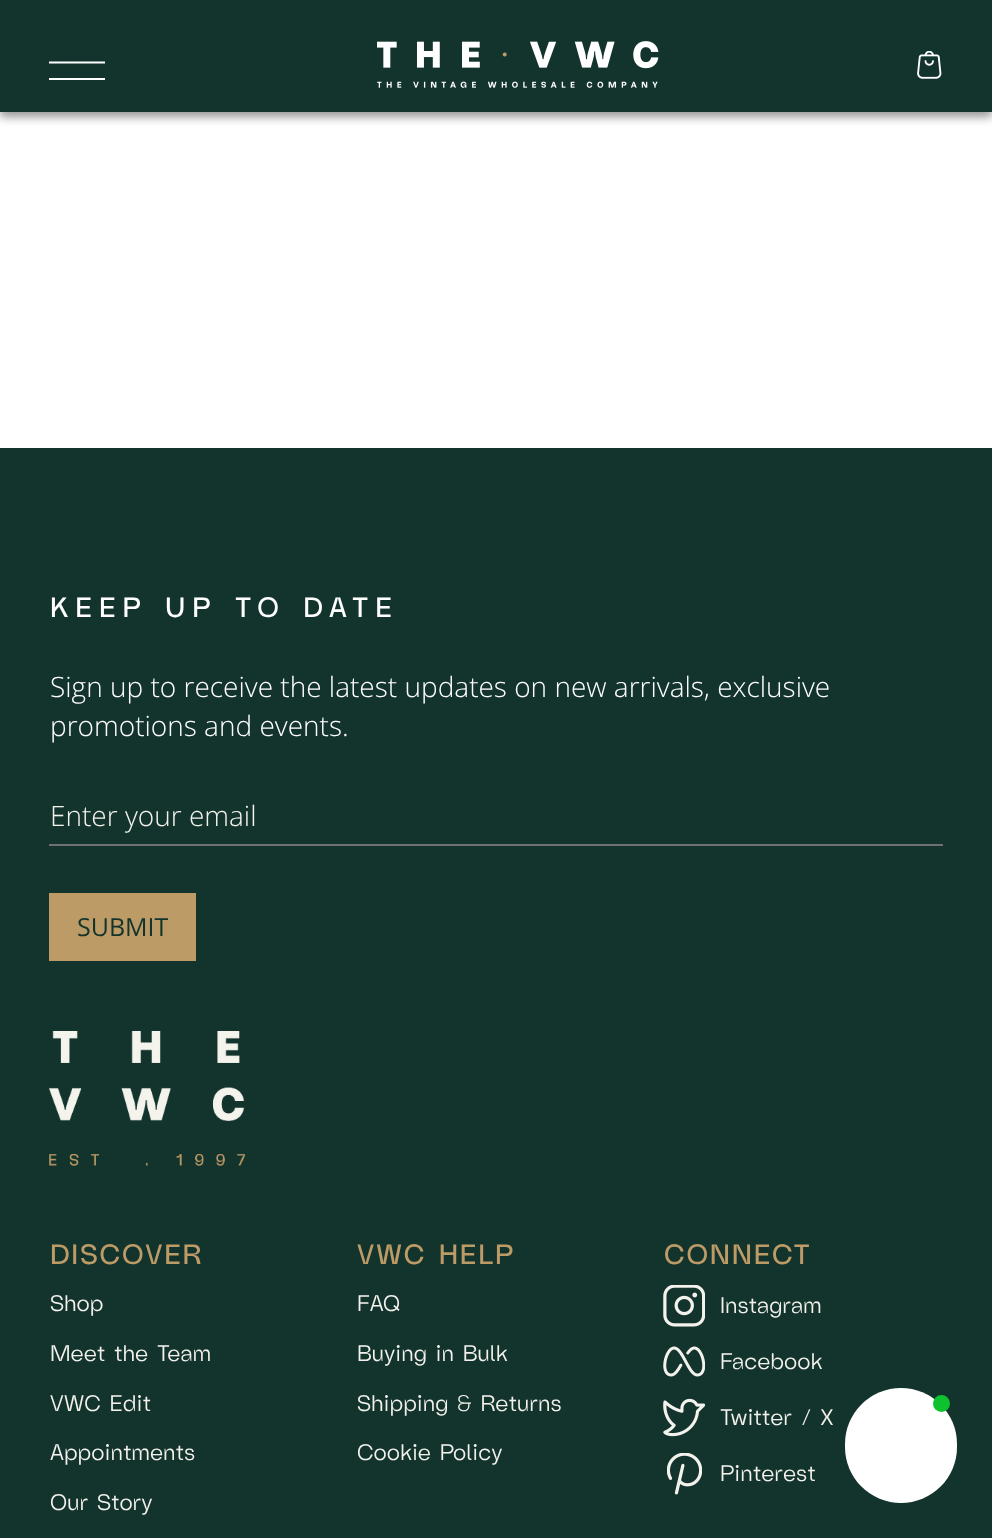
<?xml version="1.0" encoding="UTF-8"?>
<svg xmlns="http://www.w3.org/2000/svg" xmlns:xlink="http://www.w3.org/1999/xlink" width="992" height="1538">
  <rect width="100%" height="100%" fill="#ffffff" />
  <rect y="5" width="992" height="112" fill="#000000" fill-opacity="0.41" filter="blur(5px)" />
  <rect width="992" height="112" fill="#13332d" />
  <path d="M 49 62.5 h 56" fill="none" stroke="#ffffff" stroke-width="2.2" />
  <rect x="49" y="78" width="56" height="2" fill="#ffffff" />
  <image x="377" y="41" width="282" height="47" xlink:href="image1.png" />
  <image x="917" y="51" width="25" height="28" xlink:href="image2.png" />
  <rect y="448" width="992" height="1090" fill="#13332d" />
  <rect x="49" y="844" width="894" height="2" fill="#707070" />
  <rect x="49" y="893" width="147" height="68" fill="#bc9b66" />
  <image x="49" y="1031" width="196" height="135" xlink:href="image3.png" />
  <image x="663" y="1285" width="42" height="42" xlink:href="image4.png" />
  <image x="663" y="1346" width="42" height="31" xlink:href="image5.png" />
  <image x="663" y="1398" width="42" height="39" xlink:href="image6.png" />
  <image x="667" y="1453" width="35" height="42" xlink:href="image7.png" />
  <rect x="845" y="1388" width="112" height="115" rx="56" fill="#ffffff" />
  <circle cx="941.5" cy="1403.5" r="8.5" fill="#0ec12f" />
  <text x="50" y="617" style="font-family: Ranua; font-size: 28px; letter-spacing: 7px; fill: #ffffff">KEEP UP TO DATE</text>
  <text x="50" y="697" style="font-family: Open Sans; font-size: 28px; font-weight: 300; fill: #ffffff">Sign up to receive the latest updates on new arrivals, exclusive</text>
  <text x="50" y="736" style="font-family: Open Sans; font-size: 28px; font-weight: 300; fill: #ffffff">promotions and events.</text>
  <text x="50" y="826" style="font-family: Open Sans; font-size: 28px; font-weight: 300; fill: #f3f2ec">Enter your email</text>
  <text x="77" y="936" style="font-family: Open Sans; font-size: 25px; fill: #13332d">SUBMIT</text>
  <text x="50" y="1264" style="font-family: Ranua; font-size: 28px; letter-spacing: 1.75px; fill: #bc9b66">DISCOVER</text>
  <text x="50" y="1311" style="font-family: Ranua; font-size: 22.5px; font-weight: 300; fill: #f3f2ec">Shop</text>
  <text x="50" y="1361" style="font-family: Ranua; font-size: 22.5px; font-weight: 300; fill: #f3f2ec">Meet the Team</text>
  <text x="50" y="1411" style="font-family: Ranua; font-size: 22.5px; font-weight: 300; fill: #f3f2ec">VWC Edit</text>
  <text x="50" y="1460" style="font-family: Ranua; font-size: 22.5px; font-weight: 300; fill: #f3f2ec">Appointments</text>
  <text x="50" y="1510" style="font-family: Ranua; font-size: 22.5px; font-weight: 300; fill: #f3f2ec">Our Story</text>
  <text x="357" y="1264" style="font-family: Ranua; font-size: 28px; letter-spacing: 1.75px; fill: #bc9b66">VWC HELP</text>
  <text x="357" y="1311" style="font-family: Ranua; font-size: 22.5px; font-weight: 300; fill: #f3f2ec">FAQ</text>
  <text x="357" y="1361" style="font-family: Ranua; font-size: 22.5px; font-weight: 300; fill: #f3f2ec">Buying in Bulk</text>
  <text x="357" y="1411" style="font-family: Ranua; font-size: 22.5px; font-weight: 300; fill: #f3f2ec">Shipping &amp; Returns</text>
  <text x="357" y="1460" style="font-family: Ranua; font-size: 22.5px; font-weight: 300; fill: #f3f2ec">Cookie Policy</text>
  <text x="664" y="1264" style="font-family: Ranua; font-size: 28px; letter-spacing: 1.75px; fill: #bc9b66">CONNECT</text>
  <text x="720" y="1313" style="font-family: Ranua; font-size: 22.5px; font-weight: 300; fill: #f3f2ec">Instagram</text>
  <text x="720" y="1369" style="font-family: Ranua; font-size: 22.5px; font-weight: 300; fill: #f3f2ec">Facebook</text>
  <text x="720" y="1425" style="font-family: Ranua; font-size: 22.5px; font-weight: 300; fill: #f3f2ec">Twitter / X</text>
  <text x="720" y="1481" style="font-family: Ranua; font-size: 22.5px; font-weight: 300; fill: #f3f2ec">Pinterest</text>
</svg>
